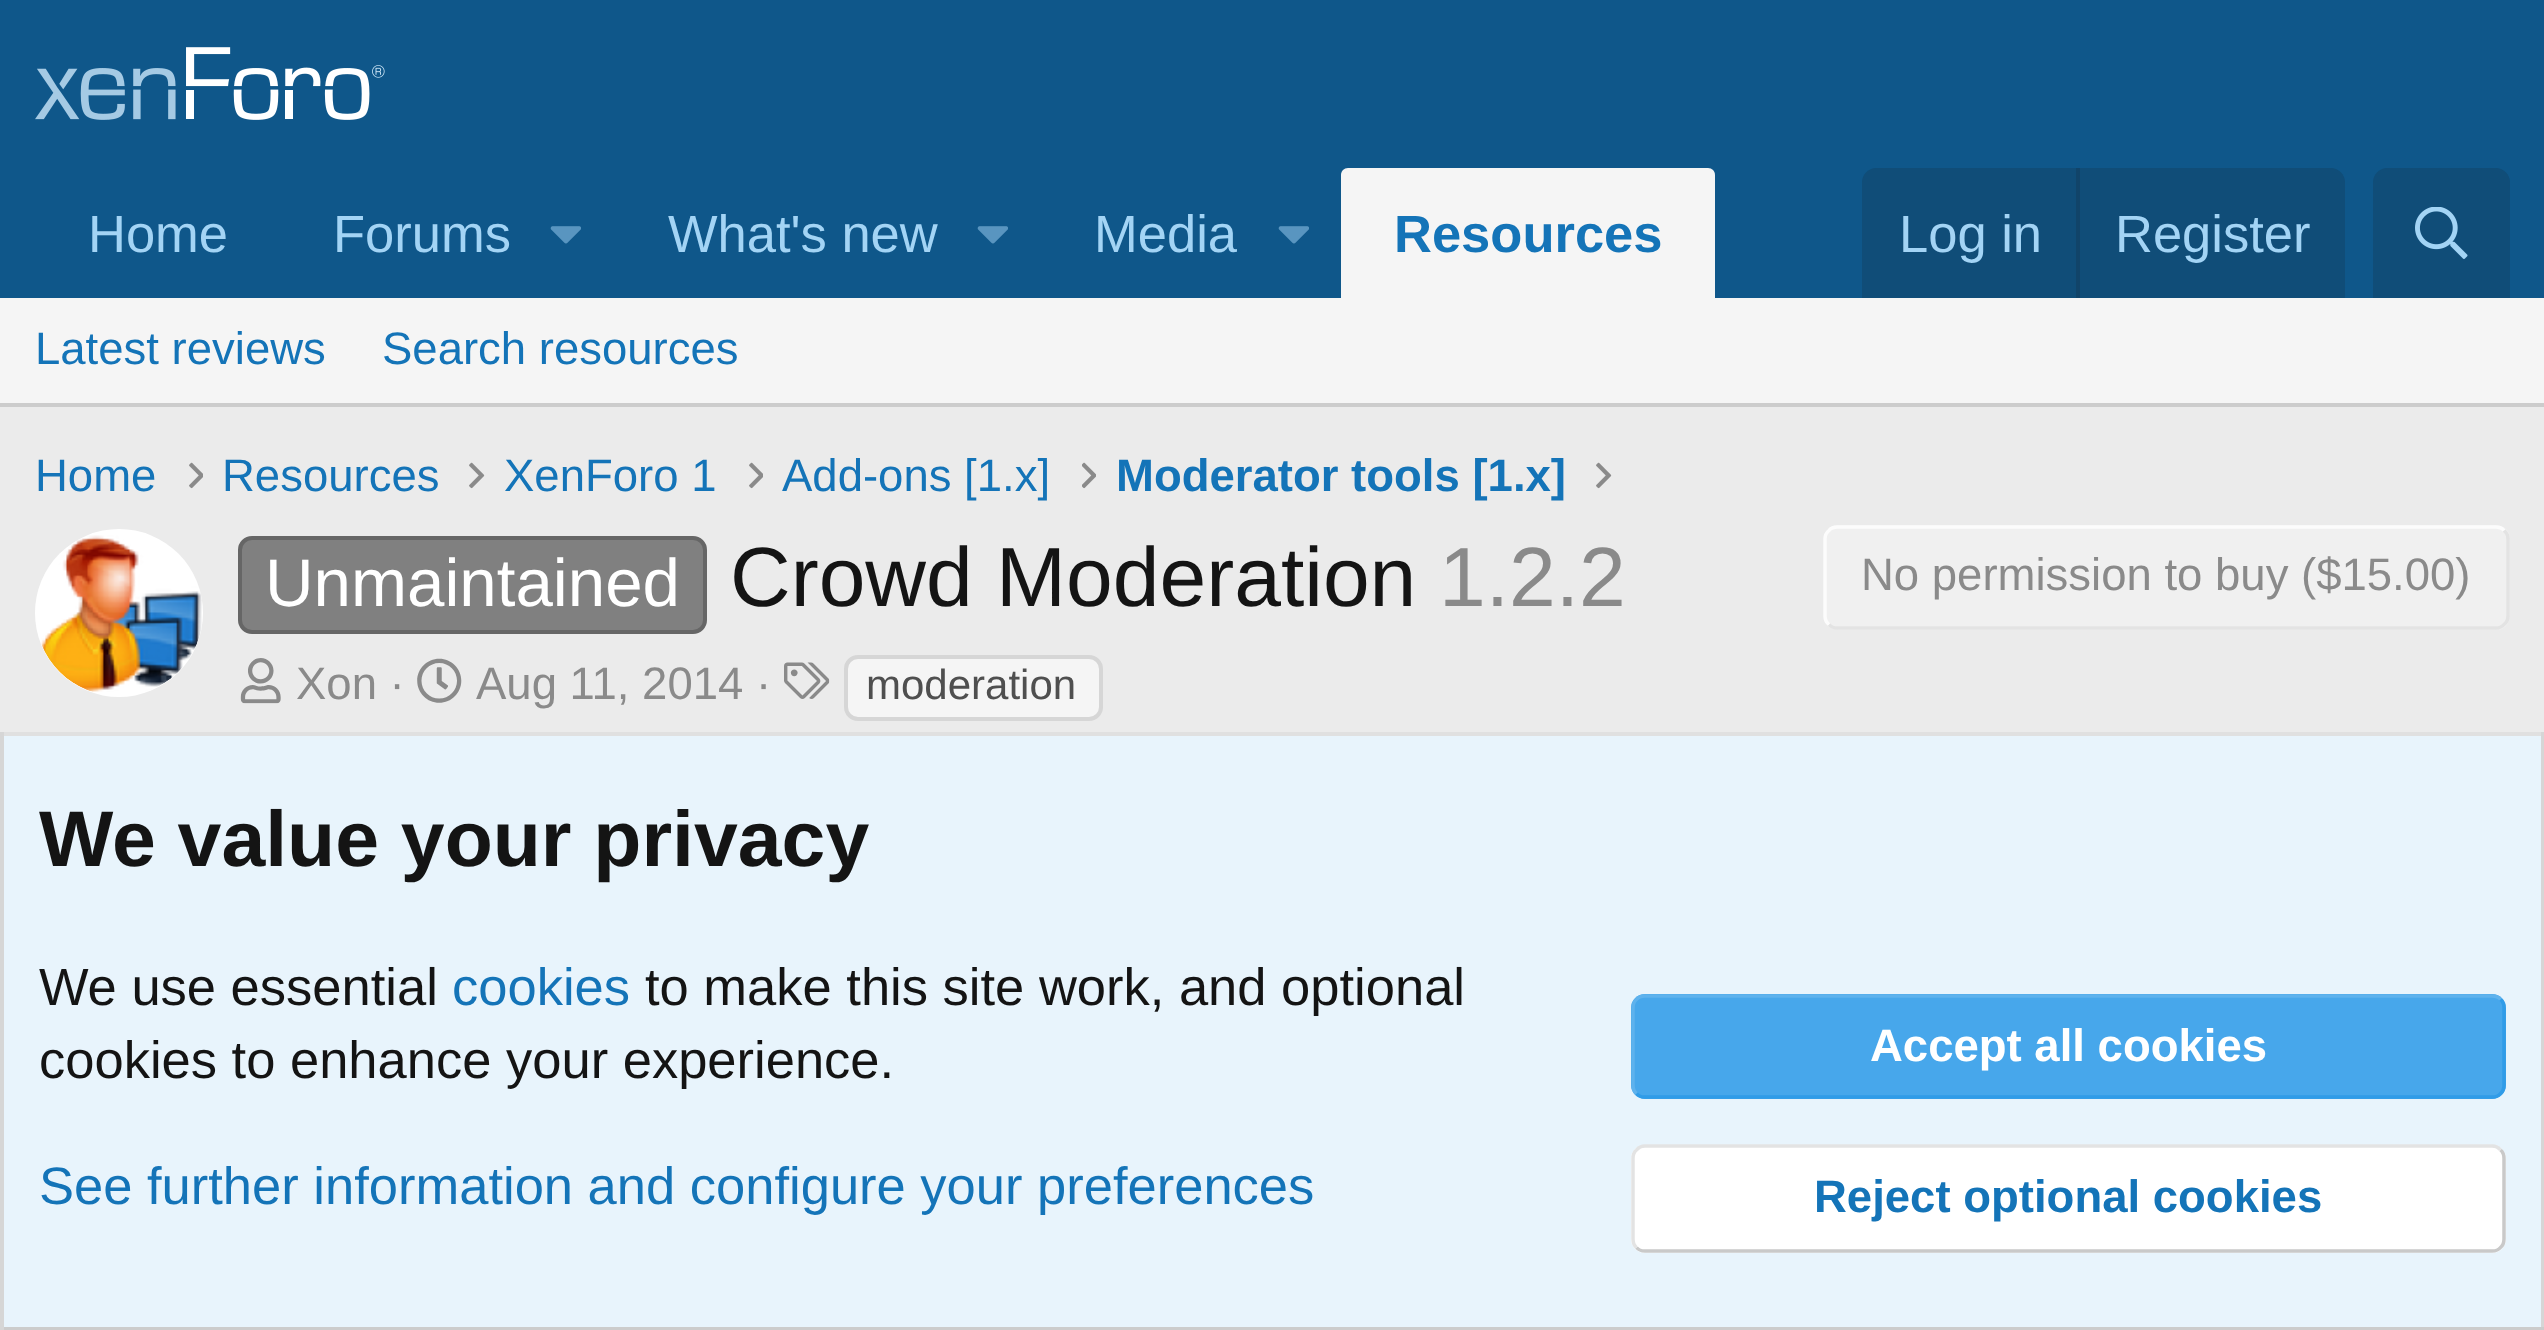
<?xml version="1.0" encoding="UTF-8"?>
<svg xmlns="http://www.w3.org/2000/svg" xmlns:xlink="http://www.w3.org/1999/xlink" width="2544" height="1330">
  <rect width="100%" height="100%" fill="#ebebeb" />
  <rect width="2544" height="298" fill="#0f578a" />
  <image x="35" y="47" width="350" height="73" xlink:href="image1.png" />
  <image x="550" y="226" width="31" height="18" xlink:href="image2.png" />
  <image x="977" y="226" width="31" height="18" xlink:href="image2.png" />
  <image x="1278" y="226" width="31" height="18" xlink:href="image2.png" />
  <path d="M 1348 168 h 360 c 4 0 7 3 7 7 v 123 h -374 v -123 c 0 -4 3 -7 7 -7 z" fill="#f5f5f5" />
  <path d="M 1876 168 h 455 c 7.5 0 14 6.5 14 14 v 116 h -483 v -116 c 0 -7.5 6.5 -14 14 -14 z" fill="#104d78" />
  <rect x="2076" y="168" width="4" height="130" fill="#114469" />
  <path d="M 2387 168 h 109 c 7.5 0 14 6.5 14 14 v 116 h -137 v -116 c 0 -7.5 6.5 -14 14 -14 z" fill="#104d78" />
  <image x="2415" y="207" width="53" height="52" xlink:href="image3.png" />
  <rect y="298" width="2544" height="105" fill="#f5f5f5" />
  <rect y="403" width="2544" height="4" fill="#cccccc" />
  <image x="189" y="462" width="14" height="27" xlink:href="image4.png" />
  <image x="469" y="462" width="16" height="27" xlink:href="image5.png" />
  <image x="749" y="462" width="14" height="27" xlink:href="image4.png" />
  <image x="1082" y="462" width="14" height="27" xlink:href="image6.png" />
  <image x="1596" y="462" width="16" height="27" xlink:href="image5.png" />
  <circle cx="119" cy="613" r="84" fill="#ffffff" />
  <image x="41" y="535" width="161" height="157" xlink:href="image7.png" />
  <rect x="240" y="538" width="465" height="94" rx="12" fill="#808080" stroke="#666666" stroke-width="4" />
  <rect x="1824" y="525" width="686" height="105" rx="14" fill="#f0f0f0" />
  <path d="M 2504 530.5 c 2.5 2 4 5.5 4 8.5 v 77 c 0 3 -1.5 6.5 -4 8.5 c -2 2.5 -5.5 3.5 -8.5 3.5 h -658 c -3 0 -6.5 -1 -8.5 -3.5" fill="none" stroke="#e3e3e3" stroke-width="3.5" />
  <path d="M 1829 624.5 c -2.5 -2 -4 -5.5 -4 -8.5 v -77 c 0 -3 1.5 -6.5 4 -8.5 c 2 -2.5 5.5 -3.5 8.5 -3.5 h 658 c 3 0 6.5 1 8.5 3.5" fill="none" stroke="#fcfcfc" stroke-width="3.5" />
  <image x="240" y="658" width="41" height="46" xlink:href="image8.png" />
  <image x="417" y="658" width="45" height="45" xlink:href="image9.png" />
  <image x="784" y="662" width="46" height="37" xlink:href="image10.png" />
  <rect x="846" y="657" width="255" height="62" rx="12" fill="#f5f5f5" stroke="#d6d6d6" stroke-width="4" />
  <rect x="4" y="736" width="2537" height="591" fill="#e8f4fc" />
  <rect y="732" width="2544" height="4" fill="#e0e0e0" />
  <rect x="2541" y="732" width="3" height="598" fill="#d6d6d6" />
  <rect y="1327" width="2544" height="3" fill="#cccccc" />
  <rect y="732" width="4" height="598" fill="#d6d6d6" />
  <rect x="1631" y="994" width="875" height="105" rx="14" fill="#47a7eb" />
  <path d="M 2500.5 999.5 c 2.5 2 3.5 5.5 3.5 8.5 v 77 c 0 3 -1 6.5 -3.5 8.5 c -2 2.5 -5.5 3.5 -8.5 3.5 h -847 c -3 0 -6.5 -1 -8.5 -3.5" fill="none" stroke="#309ce8" stroke-width="3.5" />
  <path d="M 1636.5 1093.5 c -2.5 -2 -3.5 -5.5 -3.5 -8.5 v -77 c 0 -3 1 -6.5 3.5 -8.5 c 2 -2.5 5.5 -3.5 8.5 -3.5 h 847 c 3 0 6.5 1 8.5 3.5" fill="none" stroke="#5eb2ed" stroke-width="3.5" />
  <rect x="1631" y="1145" width="875" height="108" rx="14" fill="#ffffff" />
  <path d="M 2500.5 1150 c 2.5 2 3.5 5.5 3.5 8.5 v 80.5 c 0 3 -1 6.5 -3.5 8.5 c -2 2.5 -5.5 3.5 -8.5 3.5 h -847 c -3 0 -6.5 -1 -8.5 -3.5" fill="none" stroke="#c9c9c9" stroke-width="3.5" />
  <path d="M 1636.5 1247.5 c -2.5 -2 -3.5 -5.5 -3.5 -8.5 v -80.5 c 0 -3 1 -6.5 3.5 -8.5 c 2 -2.5 5.5 -4 8.5 -4 h 847 c 3 0 6.5 1.5 8.5 4" fill="none" stroke="#e3e3e3" stroke-width="3.5" />
  <text x="88" y="252" style="font-family: Liberation Sans; font-size: 52.5px; fill: #a3d4f5">Home</text>
  <text x="333" y="252" style="font-family: Liberation Sans; font-size: 52.5px; fill: #a3d4f5">Forums</text>
  <text x="668" y="252" style="font-family: Liberation Sans; font-size: 52.5px; fill: #a3d4f5">What's new</text>
  <text x="1094" y="252" style="font-family: Liberation Sans; font-size: 52.5px; fill: #a3d4f5">Media</text>
  <text x="1394" y="252" style="font-family: Liberation Sans; font-size: 52.5px; font-weight: bold; fill: #1474b8">Resources</text>
  <text x="1899" y="252" style="font-family: Liberation Sans; font-size: 52.5px; fill: #a3d4f5">Log in</text>
  <text x="2115" y="252" style="font-family: Liberation Sans; font-size: 52.5px; fill: #a3d4f5">Register</text>
  <text x="35" y="364" style="font-family: Liberation Sans; font-size: 45.5px; fill: #1474b8">Latest reviews</text>
  <text x="382" y="364" style="font-family: Liberation Sans; font-size: 45.5px; fill: #1474b8">Search resources</text>
  <text x="35" y="491" style="font-family: Liberation Sans; font-size: 45.5px; fill: #1474b8">Home</text>
  <text x="222" y="491" style="font-family: Liberation Sans; font-size: 45.5px; fill: #1474b8">Resources</text>
  <text x="504" y="491" style="font-family: Liberation Sans; font-size: 45.5px; fill: #1474b8">XenForo 1</text>
  <text x="782" y="491" style="font-family: Liberation Sans; font-size: 45.5px; fill: #1474b8">Add-ons [1.x]</text>
  <text x="1116" y="491" style="font-family: Liberation Sans; font-size: 45.5px; font-weight: bold; fill: #1474b8">Moderator tools [1.x]</text>
  <text x="265" y="606" style="font-family: Liberation Sans; font-size: 67.25px; fill: #ffffff">Unmaintained</text>
  <text x="730" y="606" style="font-family: Liberation Sans; font-size: 84px; fill: #141414">Crowd Moderation</text>
  <text x="1439" y="606" style="font-family: Liberation Sans; font-size: 84px; fill: #8a8a8a">1.2.2</text>
  <text x="1861" y="590" style="font-family: Liberation Sans; font-size: 45.5px; fill: #8a8a8a">No permission to buy ($15.00)</text>
  <text x="296" y="699" style="font-family: Liberation Sans; font-size: 45.5px; fill: #8a8a8a">Xon ·</text>
  <text x="476" y="699" style="font-family: Liberation Sans; font-size: 45.5px; fill: #8a8a8a">Aug 11, 2014 ·</text>
  <text x="866" y="699" style="font-family: Liberation Sans; font-size: 42px; fill: #4f4f4f">moderation</text>
  <text x="39" y="866" style="font-family: Liberation Sans; font-size: 78.75px; font-weight: bold; fill: #141414">We value your privacy</text>
  <text x="39" y="1005" style="font-family: Liberation Sans; font-size: 52.5px; fill: #141414">We use essential</text>
  <text x="452" y="1005" style="font-family: Liberation Sans; font-size: 52.5px; fill: #1474b8">cookies</text>
  <text x="645" y="1005" style="font-family: Liberation Sans; font-size: 52.5px; fill: #141414">to make this site work, and optional</text>
  <text x="39" y="1078" style="font-family: Liberation Sans; font-size: 52.5px; fill: #141414">cookies to enhance your experience.</text>
  <text x="39" y="1204" style="font-family: Liberation Sans; font-size: 52.5px; fill: #1474b8">See further information and configure your preferences</text>
  <text x="1870" y="1061" style="font-family: Liberation Sans; font-size: 45.5px; font-weight: bold; fill: #ffffff">Accept all cookies</text>
  <text x="1814" y="1212" style="font-family: Liberation Sans; font-size: 45.5px; font-weight: bold; fill: #1474b8">Reject optional cookies</text>
</svg>
